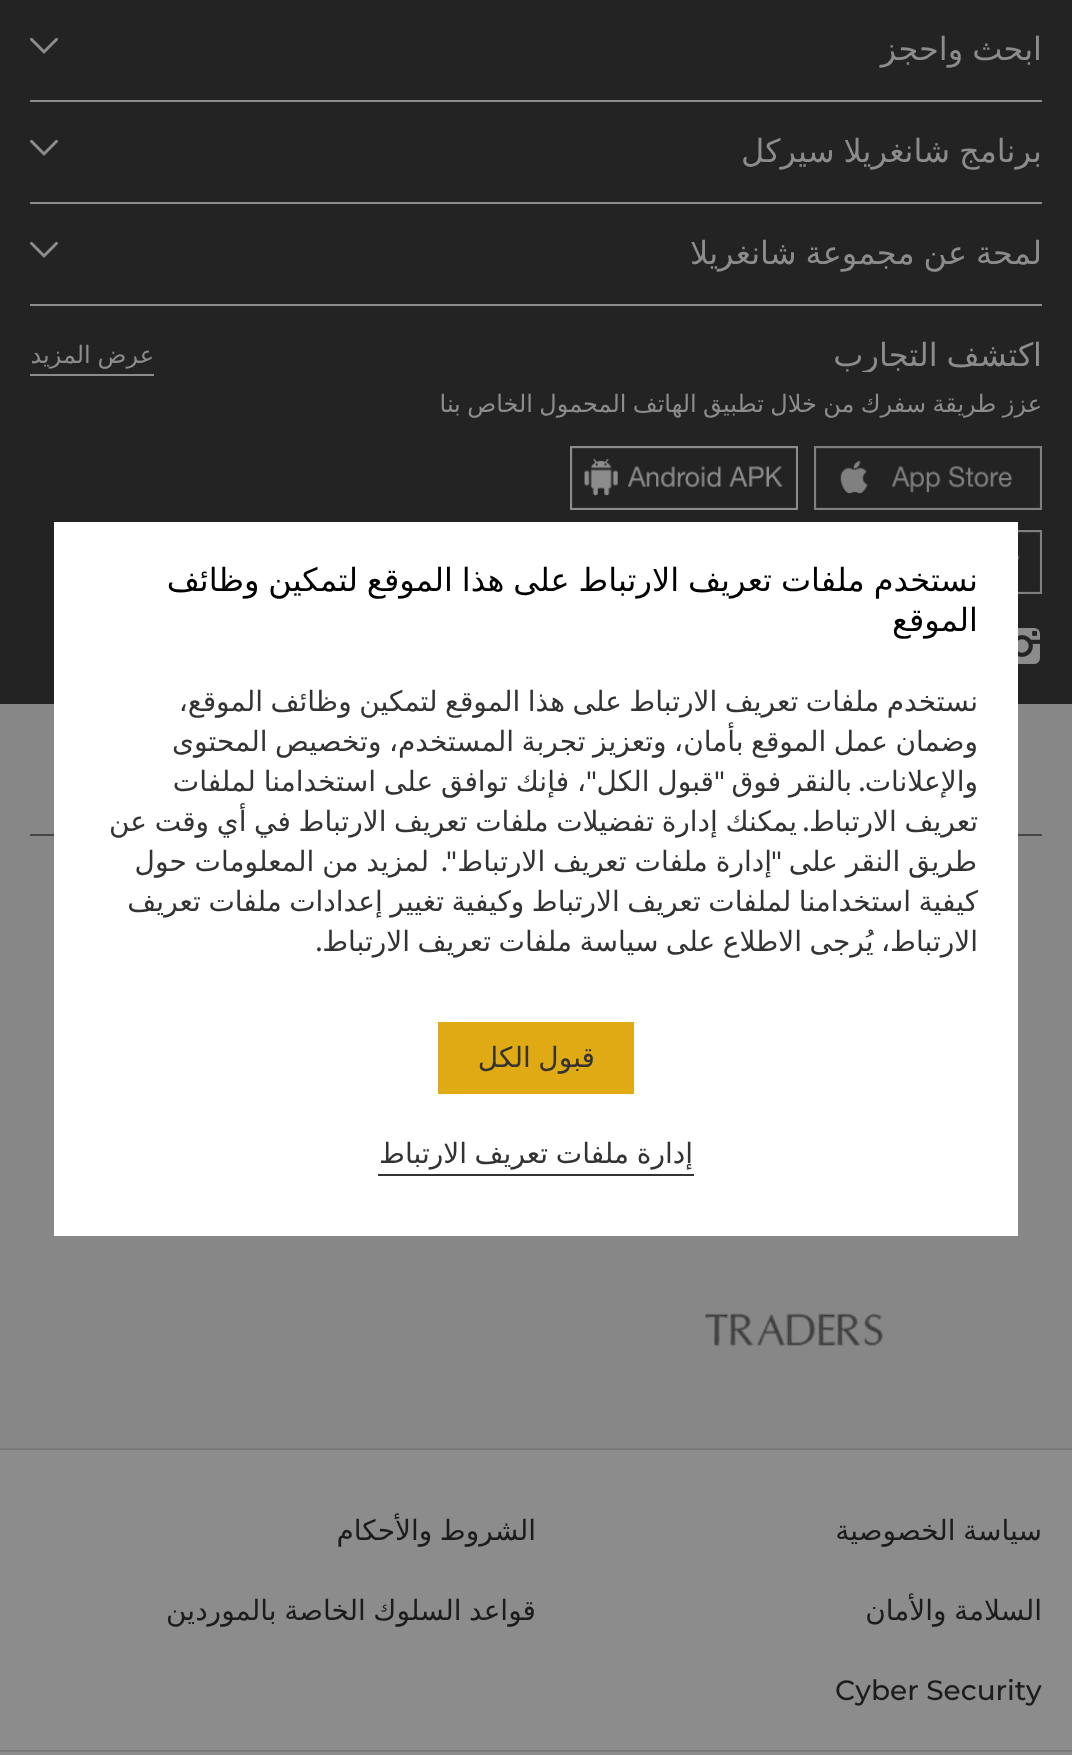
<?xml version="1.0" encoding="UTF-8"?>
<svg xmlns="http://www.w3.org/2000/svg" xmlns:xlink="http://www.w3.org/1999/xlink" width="1072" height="1755">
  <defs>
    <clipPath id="clip1"><rect x="30" width="1012" height="306" /></clipPath>
    <clipPath id="clip2"><rect x="170" y="340" width="872" height="32" /></clipPath>
  </defs>
  <rect width="100%" height="100%" fill="#8c8c8c" />
  <rect width="1072" height="704" fill="#232323" />
  <rect x="30" y="100" width="1012" height="2" fill="#8c8c8c" />
  <image x="30" y="37" width="28" height="17" xlink:href="image1.png" />
  <rect x="30" y="202" width="1012" height="2" fill="#8c8c8c" />
  <image x="30" y="139" width="28" height="17" xlink:href="image1.png" />
  <image x="30" y="241" width="28" height="17" xlink:href="image1.png" />
  <rect x="30" y="304" width="1012" height="2" fill="#8c8c8c" />
  <rect x="30" y="374" width="124" height="2" fill="#8c8c8c" />
  <image x="814" y="446" width="228" height="64" xlink:href="image2.png" />
  <image x="1018" y="530" width="24" height="64" xlink:href="image3.png" />
  <image x="570" y="446" width="228" height="64" xlink:href="image4.png" />
  <image x="1018" y="628" width="22" height="36" xlink:href="image5.png" />
  <rect y="704" width="1072" height="744" fill="#878787" />
  <rect y="1448" width="1072" height="2" fill="#7a7a7a" />
  <rect x="1018" y="834" width="24" height="2" fill="#464646" />
  <rect x="30" y="834" width="24" height="2" fill="#464646" />
  <image x="705" y="1313" width="178" height="33" xlink:href="image6.png" />
  <rect y="1750" width="1072" height="2" fill="#7a7a7a" />
  <rect x="54" y="522" width="964" height="714" fill="#ffffff" />
  <rect x="438" y="1022" width="196" height="72" fill="#e0aa14" />
  <rect x="378" y="1174" width="316" height="2" fill="#333333" />
  <text x="1042" y="60" word-spacing="-1.25" style="font-family: DejaVu Sans; font-size: 32px; direction: rtl; fill: #8c8c8c">ابحث واحجز</text>
  <text x="1042" y="162" word-spacing="-1.25" style="font-family: DejaVu Sans; font-size: 32px; direction: rtl; fill: #8c8c8c">برنامج شانغريلا سيركل</text>
  <g clip-path="url(#clip1)">
    <text x="1042" y="264" word-spacing="-1.25" style="font-family: DejaVu Sans; font-size: 32px; direction: rtl; fill: #8c8c8c">لمحة عن مجموعة شانغريلا</text>
  </g>
  <g clip-path="url(#clip2)">
    <text x="1042" y="366" word-spacing="-1.25" style="font-family: DejaVu Sans; font-size: 32px; direction: rtl; fill: #8c8c8c">اكتشف التجارب</text>
  </g>
  <text x="154" y="363" word-spacing="-1" style="font-family: DejaVu Sans; font-size: 24px; direction: rtl; fill: #8c8c8c">عرض المزيد</text>
  <text x="1042" y="412" word-spacing="-1.25" style="font-family: DejaVu Sans; font-size: 24px; direction: rtl; fill: #8c8c8c">عزز طريقة سفرك من خلال تطبيق الهاتف المحمول الخاص بنا</text>
  <text x="1042" y="1540" word-spacing="-1.4" style="font-family: DejaVu Sans; font-size: 28px; direction: rtl; fill: #1c1c1c">سياسة الخصوصية</text>
  <text x="536" y="1540" word-spacing="-1.4" style="font-family: DejaVu Sans; font-size: 28px; direction: rtl; fill: #1c1c1c">الشروط والأحكام</text>
  <text x="1042" y="1620" word-spacing="-1.4" style="font-family: DejaVu Sans; font-size: 28px; direction: rtl; fill: #1c1c1c">السلامة والأمان</text>
  <text x="536" y="1620" word-spacing="-1.4" style="font-family: DejaVu Sans; font-size: 28px; direction: rtl; fill: #1c1c1c">قواعد السلوك الخاصة بالموردين</text>
  <text x="835" y="1700" style="font-family: Montserrat; font-size: 28px; font-weight: 500; fill: #1c1c1c">Cyber Security</text>
  <text x="978" y="591" word-spacing="-1.25" style="font-family: DejaVu Sans; font-size: 32px; direction: rtl; fill: #000000">نستخدم ملفات تعريف الارتباط على هذا الموقع لتمكين وظائف</text>
  <text x="978" y="631" style="font-family: DejaVu Sans; font-size: 32px; direction: rtl; fill: #000000">الموقع</text>
  <text x="978" y="711" word-spacing="-1.4" style="font-family: DejaVu Sans; font-size: 28px; direction: rtl; fill: #333333">نستخدم ملفات تعريف الارتباط على هذا الموقع لتمكين وظائف الموقع،</text>
  <text x="978" y="751" word-spacing="-1.4" style="font-family: DejaVu Sans; font-size: 28px; direction: rtl; fill: #333333">وضمان عمل الموقع بأمان، وتعزيز تجربة المستخدم، وتخصيص المحتوى</text>
  <text x="978" y="791" style="font-family: DejaVu Sans; font-size: 28px; direction: rtl; fill: #333333">والإعلانات</text>
  <text x="852" y="791" word-spacing="-1" style="font-family: DejaVu Sans; font-size: 28px; direction: rtl; fill: #333333">بالنقر فوق</text>
  <text x="725" y="791" style="font-family: Montserrat; font-size: 28px; font-weight: 500; direction: rtl; fill: #333333">"</text>
  <text x="714" y="791" word-spacing="-1" style="font-family: DejaVu Sans; font-size: 28px; direction: rtl; fill: #333333">قبول الكل</text>
  <text x="586" y="791" word-spacing="-1" style="font-family: DejaVu Sans; font-size: 28px; direction: rtl; fill: #333333">، فإنك توافق على استخدامنا لملفات</text>
  <text x="597" y="791" style="font-family: Montserrat; font-size: 28px; font-weight: 500; direction: rtl; fill: #333333">"</text>
  <text x="865" y="791" style="font-family: Montserrat; font-size: 28px; font-weight: 500; direction: rtl; fill: #333333">.</text>
  <text x="978" y="831" word-spacing="-1.25" style="font-family: DejaVu Sans; font-size: 28px; direction: rtl; fill: #333333">تعريف الارتباط</text>
  <text x="797" y="831" word-spacing="-1.25" style="font-family: DejaVu Sans; font-size: 28px; direction: rtl; fill: #333333">يمكنك إدارة تفضيلات ملفات تعريف الارتباط في أي وقت عن</text>
  <text x="809" y="831" style="font-family: Montserrat; font-size: 28px; font-weight: 500; direction: rtl; fill: #333333">.</text>
  <text x="977" y="871" word-spacing="-1" style="font-family: DejaVu Sans; font-size: 28px; direction: rtl; fill: #333333">طريق النقر على</text>
  <text x="772" y="871" word-spacing="-1" style="font-family: DejaVu Sans; font-size: 28px; direction: rtl; fill: #333333">إدارة ملفات تعريف الارتباط</text>
  <text x="782" y="871" style="font-family: Montserrat; font-size: 28px; font-weight: 500; direction: rtl; fill: #333333">"</text>
  <text x="457" y="871" style="font-family: Montserrat; font-size: 28px; font-weight: 500; direction: rtl; fill: #333333">".</text>
  <text x="429" y="871" word-spacing="-1" style="font-family: DejaVu Sans; font-size: 28px; direction: rtl; fill: #333333">لمزيد من المعلومات حول</text>
  <text x="978" y="911" word-spacing="-1.4" style="font-family: DejaVu Sans; font-size: 28px; direction: rtl; fill: #333333">كيفية استخدامنا لملفات تعريف الارتباط وكيفية تغيير إعدادات ملفات تعريف</text>
  <text x="978" y="951" word-spacing="-1.4" style="font-family: DejaVu Sans; font-size: 28px; direction: rtl; fill: #333333">الارتباط، يُرجى الاطلاع على سياسة ملفات تعريف الارتباط</text>
  <text x="322" y="951" style="font-family: Montserrat; font-size: 28px; font-weight: 500; direction: rtl; fill: #333333">.</text>
  <text x="595" y="1067" word-spacing="-1.25" style="font-family: DejaVu Sans; font-size: 28px; direction: rtl; fill: #333333">قبول الكل</text>
  <text x="693" y="1163" word-spacing="-1.25" style="font-family: DejaVu Sans; font-size: 28px; direction: rtl; fill: #333333">إدارة ملفات تعريف الارتباط</text>
</svg>
